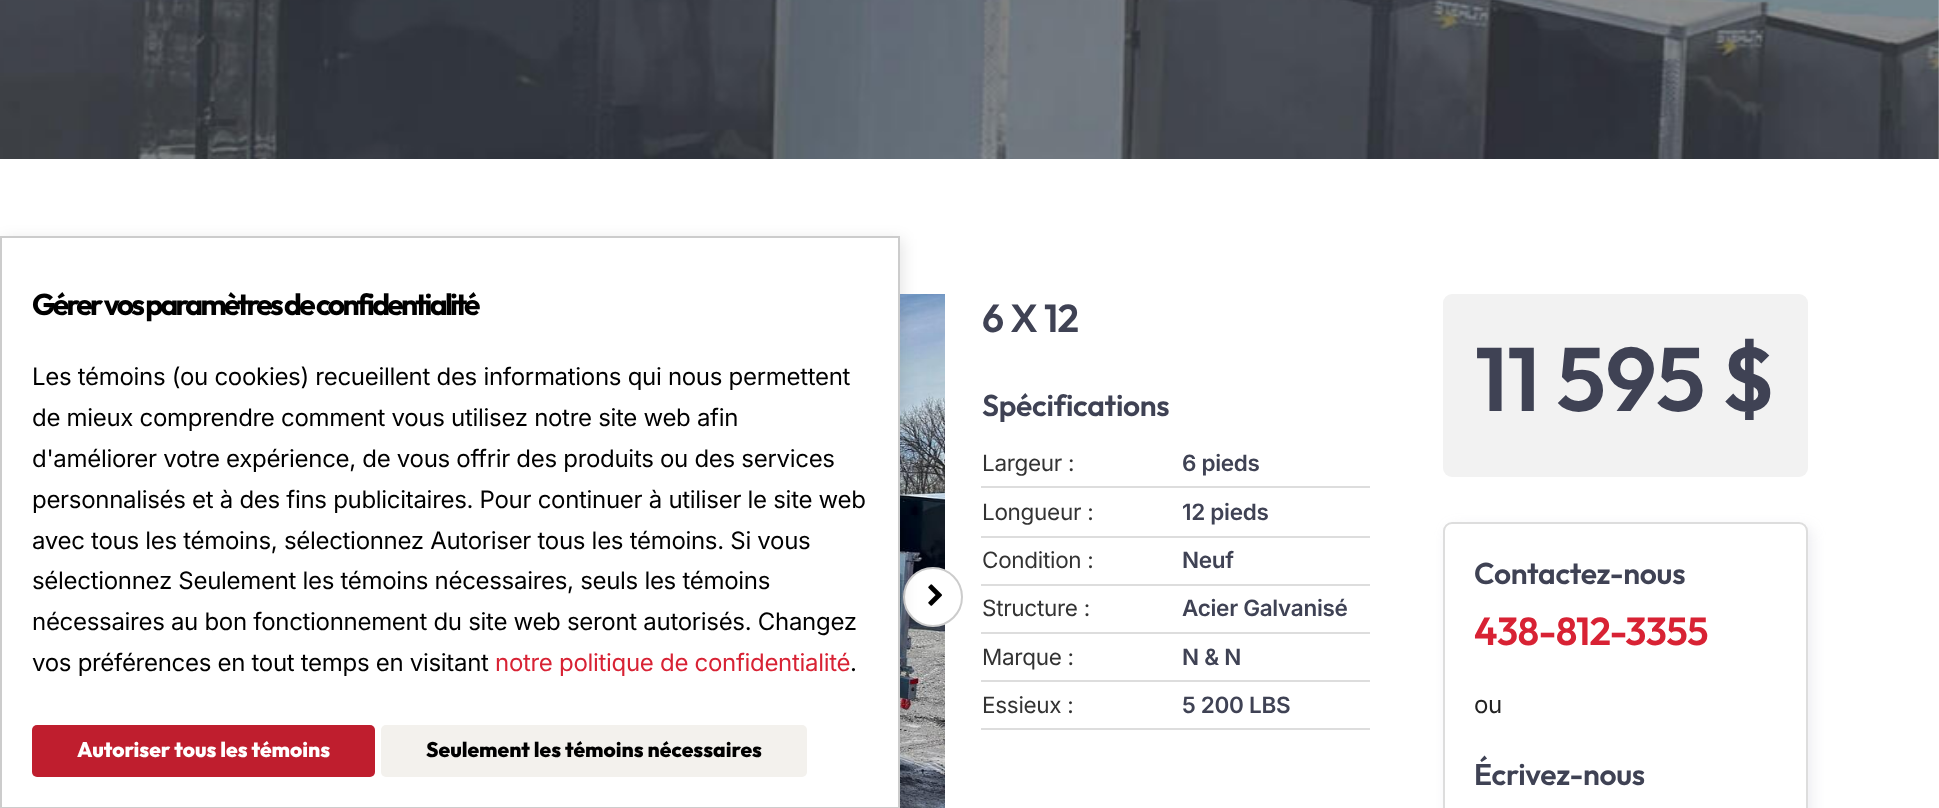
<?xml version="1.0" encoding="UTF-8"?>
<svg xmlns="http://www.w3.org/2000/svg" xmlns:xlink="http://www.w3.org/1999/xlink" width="1939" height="808">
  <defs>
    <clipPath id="clip1"><path d="M 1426 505 h 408 v 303 h -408 z m 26 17 h 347 c 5 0 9 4 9 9 v 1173 c 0 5 -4 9 -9 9 h -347 c -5 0 -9 -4 -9 -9 v -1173 c 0 -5 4 -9 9 -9 z" clip-rule="evenodd" /></clipPath>
  </defs>
  <rect width="100%" height="100%" fill="#ffffff" />
  <image x="900" y="294" width="45" height="514" xlink:href="image2.png" />
  <circle cx="933" cy="597" r="29" fill="#ffffff" stroke="#cccccc" stroke-width="2" />
  <rect x="3" y="239" width="900" height="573" fill="#000000" fill-opacity="0.1" filter="blur(7.5px)" />
  <rect x="1" y="237" width="898" height="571" fill="#ffffff" stroke="#cccccc" stroke-width="2" />
  <rect x="32" y="725" width="343" height="52" rx="5" fill="#bf1e2e" />
  <rect x="381" y="725" width="426" height="52" rx="5" fill="#f3f1ed" />
  <image x="0" y="0" width="1939" height="159" xlink:href="image1.png" />
  <image x="928" y="584" width="14" height="22" xlink:href="image3.png" />
  <rect x="981" y="486" width="389" height="2" fill="#dddddd" />
  <rect x="981" y="536" width="389" height="2" fill="#dddddd" />
  <rect x="981" y="584" width="389" height="2" fill="#dddddd" />
  <rect x="981" y="632" width="389" height="2" fill="#dddddd" />
  <rect x="981" y="680" width="389" height="2" fill="#dddddd" />
  <rect x="981" y="728" width="389" height="2" fill="#dddddd" />
  <rect x="1443" y="294" width="365" height="183" rx="9" fill="#f2f2f2" />
  <g clip-path="url(#clip1)">
    <rect x="1448" y="527" width="364" height="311" rx="9" fill="#a4a4ba" fill-opacity="0.2" filter="blur(7px)" />
  </g>
  <rect x="1444" y="523" width="363" height="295" rx="8" fill="none" stroke="#dddddd" stroke-width="2" />
  <text x="32" y="315" style="font-family: Outfit; font-size: 30px; font-weight: bold; letter-spacing: -2.7px; fill: #000000">Gérer vos paramètres de confidentialité</text>
  <text x="32" y="385" style="font-family: Inter; font-size: 24px; letter-spacing: -0.3px; fill: #000000">Les témoins (ou cookies) recueillent des informations qui nous permettent</text>
  <text x="32" y="426" style="font-family: Inter; font-size: 24px; letter-spacing: -0.3px; fill: #000000">de mieux comprendre comment vous utilisez notre site web afin</text>
  <text x="32" y="467" style="font-family: Inter; font-size: 24px; letter-spacing: -0.3px; fill: #000000">d'améliorer votre expérience, de vous offrir des produits ou des services</text>
  <text x="32" y="508" style="font-family: Inter; font-size: 24px; letter-spacing: -0.3px; fill: #000000">personnalisés et à des fins publicitaires. Pour continuer à utiliser le site web</text>
  <text x="32" y="549" style="font-family: Inter; font-size: 24px; letter-spacing: -0.3px; fill: #000000">avec tous les témoins, sélectionnez Autoriser tous les témoins. Si vous</text>
  <text x="32" y="589" style="font-family: Inter; font-size: 24px; letter-spacing: -0.3px; fill: #000000">sélectionnez Seulement les témoins nécessaires, seuls les témoins</text>
  <text x="32" y="630" style="font-family: Inter; font-size: 24px; letter-spacing: -0.3px; fill: #000000">nécessaires au bon fonctionnement du site web seront autorisés. Changez</text>
  <text x="32" y="671" style="font-family: Inter; font-size: 24px; letter-spacing: -0.3px; fill: #000000">vos préférences en tout temps en visitant</text>
  <text x="495" y="671" style="font-family: Inter; font-size: 24px; letter-spacing: -0.3px; fill: #d82234">notre politique de confidentialité</text>
  <text x="850" y="671" style="font-family: Inter; font-size: 24px; letter-spacing: -0.3px; fill: #000000">.</text>
  <text x="77" y="757" style="font-family: Outfit; font-size: 21px; font-weight: 800; fill: #ffffff">Autoriser tous les témoins</text>
  <text x="426" y="757" style="font-family: Outfit; font-size: 21px; font-weight: 800; fill: #000000">Seulement les témoins nécessaires</text>
  <text x="982" y="332" style="font-family: Outfit; font-size: 39px; font-weight: 600; letter-spacing: -0.75px; fill: #3f4254">6 X 12</text>
  <text x="982" y="416" style="font-family: Outfit; font-size: 30px; font-weight: 600; letter-spacing: -0.3px; fill: #3f4254">Spécifications</text>
  <text x="982" y="471" style="font-family: Inter; font-size: 22.5px; letter-spacing: -0.3px; fill: #333333">Largeur :</text>
  <text x="1182" y="471" style="font-family: Inter; font-size: 22.5px; font-weight: 600; letter-spacing: -0.3px; fill: #3f4254">6 pieds</text>
  <text x="982" y="520" style="font-family: Inter; font-size: 22.5px; letter-spacing: -0.3px; fill: #333333">Longueur :</text>
  <text x="1182" y="520" style="font-family: Inter; font-size: 22.5px; font-weight: 600; letter-spacing: -0.3px; fill: #3f4254">12 pieds</text>
  <text x="982" y="568" style="font-family: Inter; font-size: 22.5px; letter-spacing: -0.3px; fill: #333333">Condition :</text>
  <text x="1182" y="568" style="font-family: Inter; font-size: 22.5px; font-weight: 600; letter-spacing: -0.3px; fill: #3f4254">Neuf</text>
  <text x="982" y="616" style="font-family: Inter; font-size: 22.5px; letter-spacing: -0.3px; fill: #333333">Structure :</text>
  <text x="1182" y="616" style="font-family: Inter; font-size: 22.5px; font-weight: 600; letter-spacing: -0.3px; fill: #3f4254">Acier Galvanisé</text>
  <text x="982" y="665" style="font-family: Inter; font-size: 22.5px; letter-spacing: -0.3px; fill: #333333">Marque :</text>
  <text x="1182" y="665" style="font-family: Inter; font-size: 22.5px; font-weight: 600; letter-spacing: -0.3px; fill: #3f4254">N &amp; N</text>
  <text x="982" y="713" style="font-family: Inter; font-size: 22.5px; letter-spacing: -0.3px; fill: #333333">Essieux :</text>
  <text x="1182" y="713" style="font-family: Inter; font-size: 22.5px; font-weight: 600; letter-spacing: -0.3px; fill: #3f4254">5 200 LBS</text>
  <text x="1475" y="411" style="font-family: Outfit; font-size: 90px; font-weight: 600; letter-spacing: -0.75px; fill: #3f4254">11 595 $</text>
  <text x="1474" y="584" style="font-family: Outfit; font-size: 30px; font-weight: 600; letter-spacing: -0.3px; fill: #3f4254">Contactez-nous</text>
  <text x="1474" y="645" style="font-family: Outfit; font-size: 39px; font-weight: 600; letter-spacing: -0.75px; fill: #d82234">438-812-3355</text>
  <text x="1474" y="713" style="font-family: Inter; font-size: 24px; letter-spacing: -0.3px; fill: #222222">ou</text>
  <text x="1474" y="785" style="font-family: Outfit; font-size: 30px; font-weight: 600; letter-spacing: -0.3px; fill: #3f4254">Écrivez-nous</text>
</svg>
